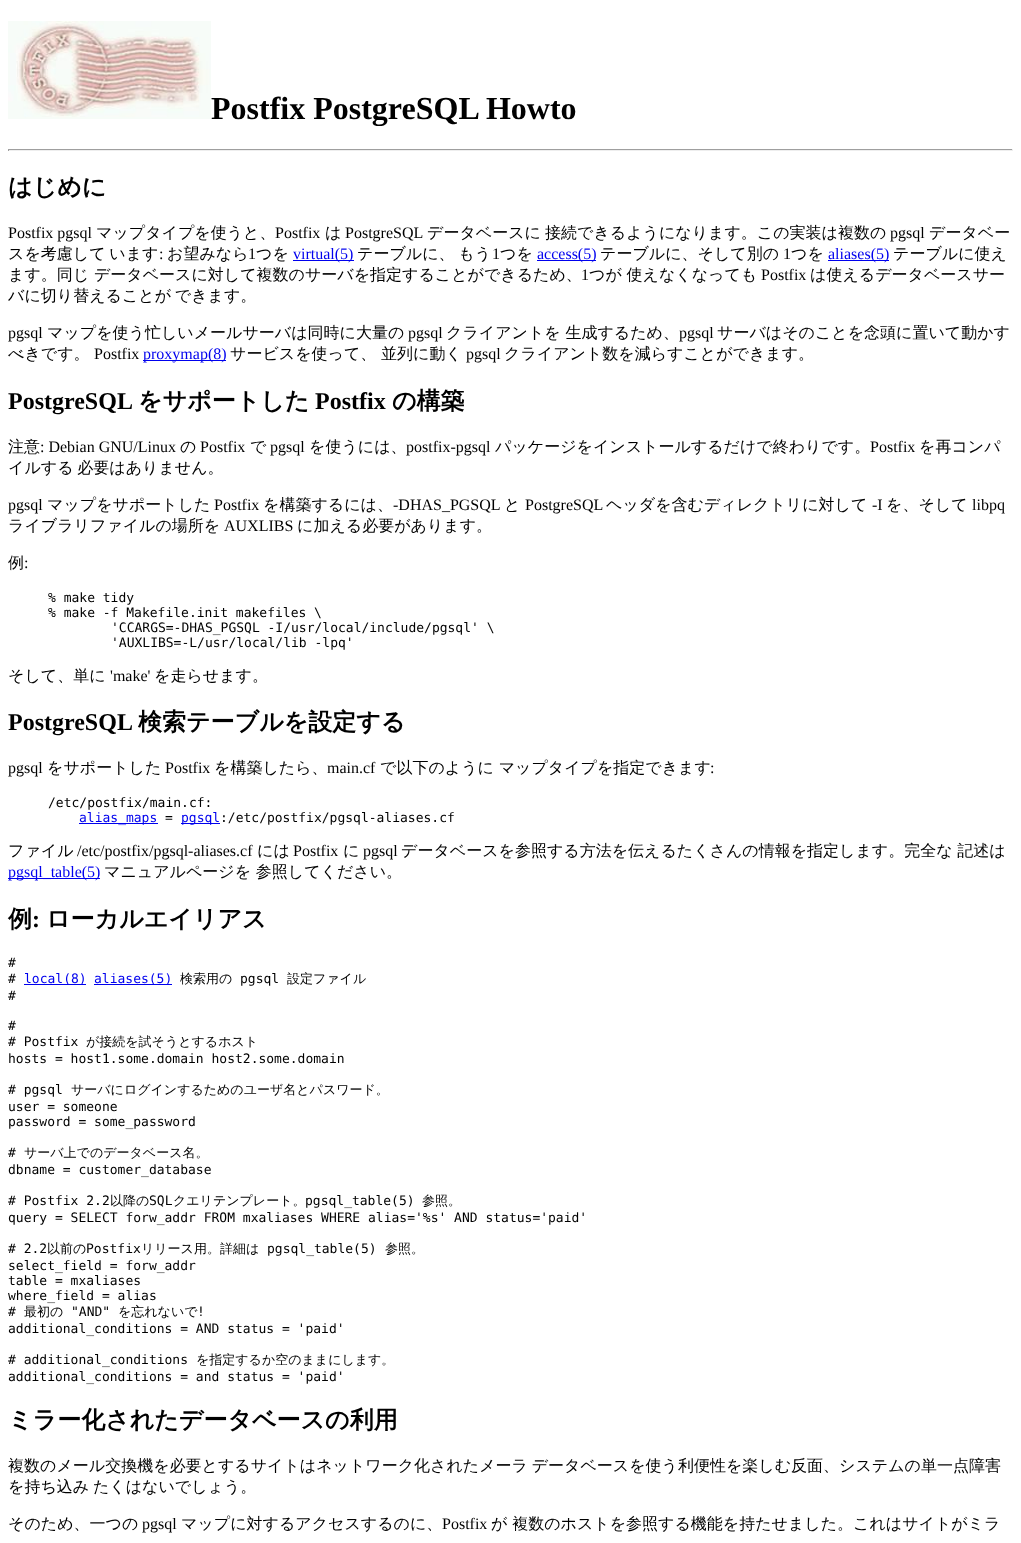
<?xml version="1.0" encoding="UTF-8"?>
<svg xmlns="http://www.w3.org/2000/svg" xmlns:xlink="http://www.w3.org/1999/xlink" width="1021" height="1543">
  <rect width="100%" height="100%" fill="#ffffff" />
  <image x="8" y="21" width="203" height="98" xlink:href="image1.png" />
  <rect x="8" y="149" width="1005" height="1" fill="#9f9f9f" />
  <rect x="1012" y="149" width="1" height="2" fill="#eeeeee" />
  <rect x="8" y="150" width="1005" height="1" fill="#eeeeee" />
  <rect x="8" y="149" width="1" height="2" fill="#9f9f9f" />
  <rect x="293" y="260" width="61" height="1" fill="#0000ee" />
  <rect x="537" y="260" width="59" height="1" fill="#0000ee" />
  <rect x="828" y="260" width="61" height="1" fill="#0000ee" />
  <rect x="143" y="360" width="83" height="1" fill="#0000ee" />
  <rect x="79" y="823" width="79" height="1" fill="#0000ee" />
  <rect x="181" y="823" width="39" height="1" fill="#0000ee" />
  <rect x="8" y="878" width="92" height="1" fill="#0000ee" />
  <rect x="24" y="984" width="62" height="1" fill="#0000ee" />
  <rect x="94" y="984" width="78" height="1" fill="#0000ee" />
  <text x="211" y="119" style="font-family: Liberation Serif; font-size: 32px; font-weight: bold; fill: #000000">Postfix PostgreSQL Howto</text>
  <text x="8" y="195" style="font-family: WenQuanYi Zen Hei; font-size: 24px; font-weight: bold; fill: #000000">はじめに</text>
  <text x="8" y="238" style="font-family: Liberation Serif; font-size: 16px; fill: #000000">Postfix pgsql</text>
  <text x="96" y="238" style="font-family: WenQuanYi Zen Hei; font-size: 16px; font-weight: 500; fill: #000000">マップタイプを使うと、</text>
  <text x="275" y="238" style="font-family: Liberation Serif; font-size: 16px; fill: #000000">Postfix</text>
  <text x="325" y="238" style="font-family: WenQuanYi Zen Hei; font-size: 16px; font-weight: 500; fill: #000000">は</text>
  <text x="345" y="238" style="font-family: Liberation Serif; font-size: 16px; fill: #000000">PostgreSQL</text>
  <text x="427" y="238" style="font-family: WenQuanYi Zen Hei; font-size: 16px; font-weight: 500; fill: #000000">データベースに</text>
  <text x="545" y="238" style="font-family: WenQuanYi Zen Hei; font-size: 16px; font-weight: 500; fill: #000000">接続できるようになります。この実装は複数の</text>
  <text x="890" y="238" style="font-family: Liberation Serif; font-size: 16px; fill: #000000">pgsql</text>
  <text x="929" y="238" style="font-family: WenQuanYi Zen Hei; font-size: 16px; font-weight: 500; fill: #000000">データベー</text>
  <text x="8" y="259" word-spacing="-1" style="font-family: WenQuanYi Zen Hei; font-size: 16px; font-weight: 500; fill: #000000">スを考慮して います</text>
  <text x="159" y="259" style="font-family: Liberation Serif; font-size: 16px; fill: #000000">:</text>
  <text x="167" y="259" style="font-family: WenQuanYi Zen Hei; font-size: 16px; font-weight: 500; fill: #000000">お望みなら</text>
  <text x="248" y="259" style="font-family: Liberation Serif; font-size: 16px; fill: #000000">1</text>
  <text x="256" y="259" style="font-family: WenQuanYi Zen Hei; font-size: 16px; font-weight: 500; fill: #000000">つを</text>
  <text x="293" y="259" style="font-family: Liberation Serif; font-size: 16px; fill: #0000ee">virtual(5)</text>
  <text x="357" y="259" word-spacing="-1" style="font-family: WenQuanYi Zen Hei; font-size: 16px; font-weight: 500; fill: #000000">テーブルに、 もう</text>
  <text x="492" y="259" style="font-family: Liberation Serif; font-size: 16px; fill: #000000">1</text>
  <text x="500" y="259" style="font-family: WenQuanYi Zen Hei; font-size: 16px; font-weight: 500; fill: #000000">つを</text>
  <text x="537" y="259" style="font-family: Liberation Serif; font-size: 16px; fill: #0000ee">access(5)</text>
  <text x="600" y="259" style="font-family: WenQuanYi Zen Hei; font-size: 16px; font-weight: 500; fill: #000000">テーブルに、そして別の</text>
  <text x="783" y="259" style="font-family: Liberation Serif; font-size: 16px; fill: #000000">1</text>
  <text x="791" y="259" style="font-family: WenQuanYi Zen Hei; font-size: 16px; font-weight: 500; fill: #000000">つを</text>
  <text x="828" y="259" style="font-family: Liberation Serif; font-size: 16px; fill: #0000ee">aliases(5)</text>
  <text x="893" y="259" style="font-family: WenQuanYi Zen Hei; font-size: 16px; font-weight: 500; fill: #000000">テーブルに使え</text>
  <text x="8" y="280" style="font-family: WenQuanYi Zen Hei; font-size: 16px; font-weight: 500; fill: #000000">ます。同じ データベースに対して複数のサーバを指定することができるため、</text>
  <text x="581" y="280" style="font-family: Liberation Serif; font-size: 16px; fill: #000000">1</text>
  <text x="589" y="280" style="font-family: WenQuanYi Zen Hei; font-size: 16px; font-weight: 500; fill: #000000">つが 使えなくなっても</text>
  <text x="761" y="280" style="font-family: Liberation Serif; font-size: 16px; fill: #000000">Postfix</text>
  <text x="810" y="280" style="font-family: WenQuanYi Zen Hei; font-size: 16px; font-weight: 500; fill: #000000">は使えるデータベースサー</text>
  <text x="8" y="301" word-spacing="-1" style="font-family: WenQuanYi Zen Hei; font-size: 16px; font-weight: 500; fill: #000000">バに切り替えることが できます。</text>
  <text x="8" y="338" style="font-family: Liberation Serif; font-size: 16px; fill: #000000">pgsql</text>
  <text x="47" y="338" style="font-family: WenQuanYi Zen Hei; font-size: 16px; font-weight: 500; fill: #000000">マップを使う忙しいメールサーバは同時に大量の</text>
  <text x="408" y="338" style="font-family: Liberation Serif; font-size: 16px; fill: #000000">pgsql</text>
  <text x="446" y="338" style="font-family: WenQuanYi Zen Hei; font-size: 16px; font-weight: 500; fill: #000000">クライアントを 生成するため、</text>
  <text x="679" y="338" style="font-family: Liberation Serif; font-size: 16px; fill: #000000">pgsql</text>
  <text x="717" y="338" style="font-family: WenQuanYi Zen Hei; font-size: 16px; font-weight: 500; fill: #000000">サーバはそのことを念頭に置いて動かす</text>
  <text x="8" y="359" style="font-family: WenQuanYi Zen Hei; font-size: 16px; font-weight: 500; fill: #000000">べきです。</text>
  <text x="94" y="359" style="font-family: Liberation Serif; font-size: 16px; fill: #000000">Postfix</text>
  <text x="143" y="359" style="font-family: Liberation Serif; font-size: 16px; fill: #0000ee">proxymap(8)</text>
  <text x="230" y="359" style="font-family: WenQuanYi Zen Hei; font-size: 16px; font-weight: 500; fill: #000000">サービスを使って、 並列に動く</text>
  <text x="466" y="359" style="font-family: Liberation Serif; font-size: 16px; fill: #000000">pgsql</text>
  <text x="504" y="359" style="font-family: WenQuanYi Zen Hei; font-size: 16px; font-weight: 500; fill: #000000">クライアント数を減らすことができます。</text>
  <text x="8" y="409" style="font-family: Liberation Serif; font-size: 24px; font-weight: bold; fill: #000000">PostgreSQL</text>
  <text x="138" y="409" style="font-family: WenQuanYi Zen Hei; font-size: 24px; font-weight: bold; fill: #000000">をサポートした</text>
  <text x="315" y="409" style="font-family: Liberation Serif; font-size: 24px; font-weight: bold; fill: #000000">Postfix</text>
  <text x="392" y="409" style="font-family: WenQuanYi Zen Hei; font-size: 24px; font-weight: bold; fill: #000000">の構築</text>
  <text x="8" y="452" style="font-family: WenQuanYi Zen Hei; font-size: 16px; font-weight: 500; fill: #000000">注意</text>
  <text x="40" y="452" style="font-family: Liberation Serif; font-size: 16px; fill: #000000">: Debian GNU/Linux</text>
  <text x="180" y="452" style="font-family: WenQuanYi Zen Hei; font-size: 16px; font-weight: 500; fill: #000000">の</text>
  <text x="200" y="452" style="font-family: Liberation Serif; font-size: 16px; fill: #000000">Postfix</text>
  <text x="250" y="452" style="font-family: WenQuanYi Zen Hei; font-size: 16px; font-weight: 500; fill: #000000">で</text>
  <text x="270" y="452" style="font-family: Liberation Serif; font-size: 16px; fill: #000000">pgsql</text>
  <text x="309" y="452" style="font-family: WenQuanYi Zen Hei; font-size: 16px; font-weight: 500; fill: #000000">を使うには、</text>
  <text x="406" y="452" style="font-family: Liberation Serif; font-size: 16px; fill: #000000">postfix-pgsql</text>
  <text x="495" y="452" style="font-family: WenQuanYi Zen Hei; font-size: 16px; font-weight: 500; fill: #000000">パッケージをインストールするだけで終わりです。</text>
  <text x="870" y="452" style="font-family: Liberation Serif; font-size: 16px; fill: #000000">Postfix</text>
  <text x="919" y="452" style="font-family: WenQuanYi Zen Hei; font-size: 16px; font-weight: 500; fill: #000000">を再コンパ</text>
  <text x="8" y="473" word-spacing="-1" style="font-family: WenQuanYi Zen Hei; font-size: 16px; font-weight: 500; fill: #000000">イルする 必要はありません。</text>
  <text x="8" y="510" style="font-family: Liberation Serif; font-size: 16px; fill: #000000">pgsql</text>
  <text x="47" y="510" style="font-family: WenQuanYi Zen Hei; font-size: 16px; font-weight: 500; fill: #000000">マップをサポートした</text>
  <text x="214" y="510" style="font-family: Liberation Serif; font-size: 16px; fill: #000000">Postfix</text>
  <text x="263" y="510" style="font-family: WenQuanYi Zen Hei; font-size: 16px; font-weight: 500; fill: #000000">を構築するには、</text>
  <text x="393" y="510" style="font-family: Liberation Serif; font-size: 16px; fill: #000000">-DHAS_PGSQL</text>
  <text x="504" y="510" style="font-family: WenQuanYi Zen Hei; font-size: 16px; font-weight: 500; fill: #000000">と</text>
  <text x="525" y="510" style="font-family: Liberation Serif; font-size: 16px; fill: #000000">PostgreSQL</text>
  <text x="606" y="510" style="font-family: WenQuanYi Zen Hei; font-size: 16px; font-weight: 500; fill: #000000">ヘッダを含むディレクトリに対して</text>
  <text x="872" y="510" style="font-family: Liberation Serif; font-size: 16px; fill: #000000">-I</text>
  <text x="886" y="510" style="font-family: WenQuanYi Zen Hei; font-size: 16px; font-weight: 500; fill: #000000">を、そして</text>
  <text x="972" y="510" style="font-family: Liberation Serif; font-size: 16px; fill: #000000">libpq</text>
  <text x="8" y="531" style="font-family: WenQuanYi Zen Hei; font-size: 16px; font-weight: 500; fill: #000000">ライブラリファイルの場所を</text>
  <text x="224" y="531" style="font-family: Liberation Serif; font-size: 16px; fill: #000000">AUXLIBS</text>
  <text x="297" y="531" style="font-family: WenQuanYi Zen Hei; font-size: 16px; font-weight: 500; fill: #000000">に加える必要があります。</text>
  <text x="8" y="568" style="font-family: WenQuanYi Zen Hei; font-size: 16px; font-weight: 500; fill: #000000">例</text>
  <text x="24" y="568" style="font-family: Liberation Serif; font-size: 16px; fill: #000000">:</text>
  <text x="48" y="602" style="font-family: DejaVu Sans Mono; font-size: 13px; fill: #000000">% make tidy</text>
  <text x="48" y="617" style="font-family: DejaVu Sans Mono; font-size: 13px; fill: #000000">% make -f Makefile.init makefiles \</text>
  <text x="111" y="632" style="font-family: DejaVu Sans Mono; font-size: 13px; fill: #000000">'CCARGS=-DHAS_PGSQL -I/usr/local/include/pgsql' \</text>
  <text x="111" y="647" style="font-family: DejaVu Sans Mono; font-size: 13px; fill: #000000">'AUXLIBS=-L/usr/local/lib -lpq'</text>
  <text x="8" y="681" style="font-family: WenQuanYi Zen Hei; font-size: 16px; font-weight: 500; fill: #000000">そして、単に</text>
  <text x="110" y="681" style="font-family: Liberation Serif; font-size: 16px; fill: #000000">'make'</text>
  <text x="154" y="681" style="font-family: WenQuanYi Zen Hei; font-size: 16px; font-weight: 500; fill: #000000">を走らせます。</text>
  <text x="8" y="730" style="font-family: Liberation Serif; font-size: 24px; font-weight: bold; fill: #000000">PostgreSQL</text>
  <text x="138" y="730" style="font-family: WenQuanYi Zen Hei; font-size: 24px; font-weight: bold; fill: #000000">検索テーブルを設定する</text>
  <text x="8" y="773" style="font-family: Liberation Serif; font-size: 16px; fill: #000000">pgsql</text>
  <text x="47" y="773" style="font-family: WenQuanYi Zen Hei; font-size: 16px; font-weight: 500; fill: #000000">をサポートした</text>
  <text x="165" y="773" style="font-family: Liberation Serif; font-size: 16px; fill: #000000">Postfix</text>
  <text x="214" y="773" style="font-family: WenQuanYi Zen Hei; font-size: 16px; font-weight: 500; fill: #000000">を構築したら、</text>
  <text x="327" y="773" style="font-family: Liberation Serif; font-size: 16px; fill: #000000">main.cf</text>
  <text x="380" y="773" style="font-family: WenQuanYi Zen Hei; font-size: 16px; font-weight: 500; fill: #000000">で以下のように マップタイプを指定できます</text>
  <text x="710" y="773" style="font-family: Liberation Serif; font-size: 16px; fill: #000000">:</text>
  <text x="48" y="807" style="font-family: DejaVu Sans Mono; font-size: 13px; fill: #000000">/etc/postfix/main.cf:</text>
  <text x="79" y="822" style="font-family: DejaVu Sans Mono; font-size: 13px; fill: #0000ee">alias_maps</text>
  <text x="165" y="822" style="font-family: DejaVu Sans Mono; font-size: 13px; fill: #000000">=</text>
  <text x="181" y="822" style="font-family: DejaVu Sans Mono; font-size: 13px; fill: #0000ee">pgsql</text>
  <text x="220" y="822" style="font-family: DejaVu Sans Mono; font-size: 13px; fill: #000000">:/etc/postfix/pgsql-aliases.cf</text>
  <text x="8" y="856" style="font-family: WenQuanYi Zen Hei; font-size: 16px; font-weight: 500; fill: #000000">ファイル</text>
  <text x="77" y="856" style="font-family: Liberation Serif; font-size: 16px; fill: #000000">/etc/postfix/pgsql-aliases.cf</text>
  <text x="257" y="856" style="font-family: WenQuanYi Zen Hei; font-size: 16px; font-weight: 500; fill: #000000">には</text>
  <text x="293" y="856" style="font-family: Liberation Serif; font-size: 16px; fill: #000000">Postfix</text>
  <text x="343" y="856" style="font-family: WenQuanYi Zen Hei; font-size: 16px; font-weight: 500; fill: #000000">に</text>
  <text x="363" y="856" style="font-family: Liberation Serif; font-size: 16px; fill: #000000">pgsql</text>
  <text x="401" y="856" style="font-family: WenQuanYi Zen Hei; font-size: 16px; font-weight: 500; fill: #000000">データベースを参照する方法を伝えるたくさんの情報を指定します。完全な 記述は</text>
  <text x="8" y="877" style="font-family: Liberation Serif; font-size: 16px; fill: #0000ee">pgsql_table(5)</text>
  <text x="104" y="877" style="font-family: WenQuanYi Zen Hei; font-size: 16px; font-weight: 500; fill: #000000">マニュアルページを 参照してください。</text>
  <text x="8" y="927" style="font-family: WenQuanYi Zen Hei; font-size: 24px; font-weight: bold; fill: #000000">例</text>
  <text x="32" y="927" style="font-family: Liberation Serif; font-size: 24px; font-weight: bold; fill: #000000">:</text>
  <text x="46" y="927" style="font-family: WenQuanYi Zen Hei; font-size: 24px; font-weight: bold; fill: #000000">ローカルエイリアス</text>
  <text x="8" y="967" style="font-family: DejaVu Sans Mono; font-size: 13px; fill: #000000">#</text>
  <text x="8" y="983" style="font-family: DejaVu Sans Mono; font-size: 13px; fill: #000000">#</text>
  <text x="24" y="983" style="font-family: DejaVu Sans Mono; font-size: 13px; fill: #0000ee">local(8)</text>
  <text x="94" y="983" style="font-family: DejaVu Sans Mono; font-size: 13px; fill: #0000ee">aliases(5)</text>
  <text x="180" y="983" style="font-family: WenQuanYi Zen Hei; font-size: 13px; font-weight: 500; fill: #000000">検索用の</text>
  <text x="240" y="983" style="font-family: DejaVu Sans Mono; font-size: 13px; fill: #000000">pgsql</text>
  <text x="287" y="983" style="font-family: WenQuanYi Zen Hei; font-size: 13px; font-weight: 500; fill: #000000">設定ファイル</text>
  <text x="8" y="1000" style="font-family: DejaVu Sans Mono; font-size: 13px; fill: #000000">#</text>
  <text x="8" y="1030" style="font-family: DejaVu Sans Mono; font-size: 13px; fill: #000000">#</text>
  <text x="8" y="1046" style="font-family: DejaVu Sans Mono; font-size: 13px; fill: #000000"># Postfix</text>
  <text x="86" y="1046" style="font-family: WenQuanYi Zen Hei; font-size: 13px; font-weight: 500; fill: #000000">が接続を試そうとするホスト</text>
  <text x="8" y="1063" style="font-family: DejaVu Sans Mono; font-size: 13px; fill: #000000">hosts = host1.some.domain host2.some.domain</text>
  <text x="8" y="1094" style="font-family: DejaVu Sans Mono; font-size: 13px; fill: #000000"># pgsql</text>
  <text x="71" y="1094" style="font-family: WenQuanYi Zen Hei; font-size: 13px; font-weight: 500; fill: #000000">サーバにログインするためのユーザ名とパスワード。</text>
  <text x="8" y="1111" style="font-family: DejaVu Sans Mono; font-size: 13px; fill: #000000">user = someone</text>
  <text x="8" y="1126" style="font-family: DejaVu Sans Mono; font-size: 13px; fill: #000000">password = some_password</text>
  <text x="8" y="1157" style="font-family: DejaVu Sans Mono; font-size: 13px; fill: #000000">#</text>
  <text x="24" y="1157" style="font-family: WenQuanYi Zen Hei; font-size: 13px; font-weight: 500; fill: #000000">サーバ上でのデータベース名。</text>
  <text x="8" y="1174" style="font-family: DejaVu Sans Mono; font-size: 13px; fill: #000000">dbname = customer_database</text>
  <text x="8" y="1205" style="font-family: DejaVu Sans Mono; font-size: 13px; fill: #000000"># Postfix 2.2</text>
  <text x="110" y="1205" style="font-family: WenQuanYi Zen Hei; font-size: 13px; font-weight: 500; fill: #000000">以降の</text>
  <text x="149" y="1205" style="font-family: DejaVu Sans Mono; font-size: 13px; fill: #000000">SQL</text>
  <text x="173" y="1205" style="font-family: WenQuanYi Zen Hei; font-size: 13px; font-weight: 500; fill: #000000">クエリテンプレート。</text>
  <text x="305" y="1205" style="font-family: DejaVu Sans Mono; font-size: 13px; fill: #000000">pgsql_table(5)</text>
  <text x="422" y="1205" style="font-family: WenQuanYi Zen Hei; font-size: 13px; font-weight: 500; fill: #000000">参照。</text>
  <text x="8" y="1222" style="font-family: DejaVu Sans Mono; font-size: 13px; fill: #000000">query = SELECT forw_addr FROM mxaliases WHERE alias='%s' AND status='paid'</text>
  <text x="8" y="1253" style="font-family: DejaVu Sans Mono; font-size: 13px; fill: #000000"># 2.2</text>
  <text x="47" y="1253" style="font-family: WenQuanYi Zen Hei; font-size: 13px; font-weight: 500; fill: #000000">以前の</text>
  <text x="86" y="1253" style="font-family: DejaVu Sans Mono; font-size: 13px; fill: #000000">Postfix</text>
  <text x="141" y="1253" style="font-family: WenQuanYi Zen Hei; font-size: 13px; font-weight: 500; fill: #000000">リリース用。詳細は</text>
  <text x="267" y="1253" style="font-family: DejaVu Sans Mono; font-size: 13px; fill: #000000">pgsql_table(5)</text>
  <text x="385" y="1253" style="font-family: WenQuanYi Zen Hei; font-size: 13px; font-weight: 500; fill: #000000">参照。</text>
  <text x="8" y="1270" style="font-family: DejaVu Sans Mono; font-size: 13px; fill: #000000">select_field = forw_addr</text>
  <text x="8" y="1285" style="font-family: DejaVu Sans Mono; font-size: 13px; fill: #000000">table = mxaliases</text>
  <text x="8" y="1300" style="font-family: DejaVu Sans Mono; font-size: 13px; fill: #000000">where_field = alias</text>
  <text x="8" y="1316" style="font-family: DejaVu Sans Mono; font-size: 13px; fill: #000000">#</text>
  <text x="24" y="1316" style="font-family: WenQuanYi Zen Hei; font-size: 13px; font-weight: 500; fill: #000000">最初の</text>
  <text x="71" y="1316" style="font-family: DejaVu Sans Mono; font-size: 13px; fill: #000000">"AND"</text>
  <text x="118" y="1316" style="font-family: WenQuanYi Zen Hei; font-size: 13px; font-weight: 500; fill: #000000">を忘れないで</text>
  <text x="197" y="1316" style="font-family: DejaVu Sans Mono; font-size: 13px; fill: #000000">!</text>
  <text x="8" y="1333" style="font-family: DejaVu Sans Mono; font-size: 13px; fill: #000000">additional_conditions = AND status = 'paid'</text>
  <text x="8" y="1364" style="font-family: DejaVu Sans Mono; font-size: 13px; fill: #000000"># additional_conditions</text>
  <text x="196" y="1364" style="font-family: WenQuanYi Zen Hei; font-size: 13px; font-weight: 500; fill: #000000">を指定するか空のままにします。</text>
  <text x="8" y="1381" style="font-family: DejaVu Sans Mono; font-size: 13px; fill: #000000">additional_conditions = and status = 'paid'</text>
  <text x="8" y="1428" style="font-family: WenQuanYi Zen Hei; font-size: 24px; font-weight: bold; fill: #000000">ミラー化されたデータベースの利用</text>
  <text x="8" y="1471" word-spacing="-1" style="font-family: WenQuanYi Zen Hei; font-size: 16px; font-weight: 500; fill: #000000">複数のメール交換機を必要とするサイトはネットワーク化されたメーラ データベースを使う利便性を楽しむ反面、システムの単一点障害</text>
  <text x="8" y="1492" word-spacing="-1" style="font-family: WenQuanYi Zen Hei; font-size: 16px; font-weight: 500; fill: #000000">を持ち込み たくはないでしょう。</text>
  <text x="8" y="1529" style="font-family: WenQuanYi Zen Hei; font-size: 16px; font-weight: 500; fill: #000000">そのため、一つの</text>
  <text x="142" y="1529" style="font-family: Liberation Serif; font-size: 16px; fill: #000000">pgsql</text>
  <text x="181" y="1529" style="font-family: WenQuanYi Zen Hei; font-size: 16px; font-weight: 500; fill: #000000">マップに対するアクセスするのに、</text>
  <text x="442" y="1529" style="font-family: Liberation Serif; font-size: 16px; fill: #000000">Postfix</text>
  <text x="491" y="1529" style="font-family: WenQuanYi Zen Hei; font-size: 16px; font-weight: 500; fill: #000000">が 複数のホストを参照する機能を持たせました。これはサイトがミラ</text>
</svg>
